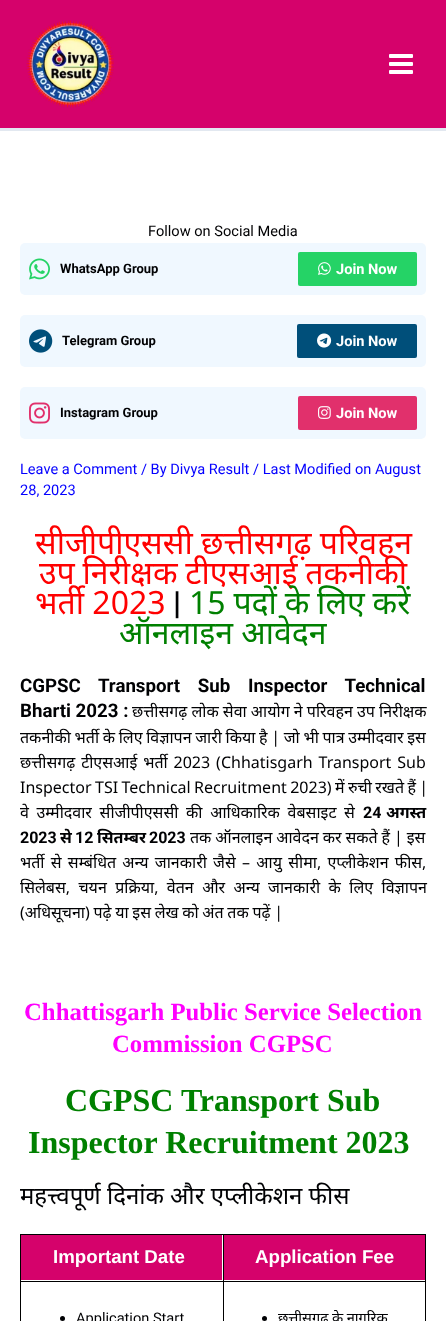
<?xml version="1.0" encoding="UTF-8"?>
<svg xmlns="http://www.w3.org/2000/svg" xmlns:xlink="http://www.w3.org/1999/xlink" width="446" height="1321">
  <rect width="100%" height="100%" fill="#ffffff" />
  <rect width="446" height="128" fill="#d5026b" />
  <rect y="128" width="446" height="3" fill="#e2e8f0" />
  <image x="26" y="20" width="88" height="88" xlink:href="image1.png" />
  <image x="389" y="54" width="24" height="20" xlink:href="image2.png" />
  <rect x="20" y="243" width="406" height="52" rx="5" fill="#f0f8ff" />
  <image x="29" y="258" width="21" height="22" xlink:href="image3.png" />
  <rect x="298" y="252" width="119" height="34" rx="2" fill="#25d366" />
  <image x="318" y="262" width="13" height="13" xlink:href="image4.png" />
  <rect x="20" y="315" width="406" height="52" rx="5" fill="#f0f8ff" />
  <image x="29" y="329" width="24" height="24" xlink:href="image5.png" />
  <rect x="297" y="324" width="120" height="34" rx="2" fill="#004f7a" />
  <image x="317" y="333" width="15" height="15" xlink:href="image6.png" />
  <rect x="20" y="387" width="406" height="52" rx="5" fill="#f0f8ff" />
  <image x="29" y="402" width="21" height="22" xlink:href="image7.png" />
  <rect x="298" y="396" width="119" height="34" rx="2" fill="#e1306c" />
  <image x="318" y="406" width="13" height="13" xlink:href="image8.png" />
  <rect x="20" y="1234" width="406" height="1" fill="#000000" />
  <rect x="20" y="1234" width="1" height="87" fill="#000000" />
  <rect x="21" y="1235" width="201" height="45" fill="#d5026b" />
  <rect x="223" y="1281" width="1" height="40" fill="#000000" />
  <rect x="425" y="1234" width="1" height="87" fill="#000000" />
  <rect x="223" y="1281" width="203" height="1" fill="#000000" />
  <rect x="223" y="1234" width="1" height="48" fill="#000000" />
  <rect x="20" y="1281" width="204" height="1" fill="#000000" />
  <rect x="224" y="1235" width="201" height="45" fill="#d5026b" />
  <circle cx="62.5" cy="1318.5" r="2.5" fill="#000103" />
  <circle cx="264.5" cy="1318.5" r="2.5" fill="#000103" />
  <text x="148" y="236" style="font-family: Roboto; font-size: 14.6px; fill: #000103">Follow on Social Media</text>
  <text x="60" y="273" style="font-family: Roboto; font-size: 13px; font-weight: bold; fill: #000103">WhatsApp Group</text>
  <text x="336" y="274" style="font-family: Roboto; font-size: 14.6px; font-weight: bold; fill: #ffffff">Join Now</text>
  <text x="62" y="345" style="font-family: Roboto; font-size: 13px; font-weight: bold; fill: #000103">Telegram Group</text>
  <text x="336" y="346" style="font-family: Roboto; font-size: 14.6px; font-weight: bold; fill: #ffffff">Join Now</text>
  <text x="60" y="417" style="font-family: Roboto; font-size: 13px; font-weight: bold; fill: #000103">Instagram Group</text>
  <text x="336" y="418" style="font-family: Roboto; font-size: 14.6px; font-weight: bold; fill: #ffffff">Join Now</text>
  <text x="20" y="474" style="font-family: Roboto; font-size: 14.6px; fill: #0400ff">Leave a Comment / By Divya Result / Last Modified on August</text>
  <text x="20" y="495" style="font-family: Roboto; font-size: 14.6px; fill: #0400ff">28, 2023</text>
  <text x="35" y="554" style="font-family: Noto Sans; font-size: 32px; fill: #ff0000">सीजीपीएससी छत्तीसगढ़ परिवहन</text>
  <text x="39" y="584" word-spacing="-0.5" style="font-family: Noto Sans; font-size: 32px; fill: #ff0000">उप निरीक्षक टीएसआई तकनीकी</text>
  <text x="35" y="614" style="font-family: Noto Sans; font-size: 32px; fill: #ff0000">भर्ती 2023</text>
  <text x="173" y="614" style="font-family: Roboto; font-size: 32px; font-weight: bold; fill: #000103">|</text>
  <text x="189" y="614" word-spacing="-0.5" style="font-family: Noto Sans; font-size: 32px; fill: #008000">15 पदों के लिए करें</text>
  <text x="119" y="644" style="font-family: Noto Sans; font-size: 32px; fill: #008000">ऑनलाइन आवेदन</text>
  <text x="20" y="692" word-spacing="13" style="font-family: Roboto; font-size: 18.7px; font-weight: bold; fill: #000103">CGPSC Transport Sub Inspector Technical</text>
  <text x="20" y="717" style="font-family: Roboto; font-size: 18.7px; font-weight: bold; fill: #000103">Bharti 2023 :</text>
  <text x="132" y="717" style="font-family: Noto Sans; font-size: 16px; fill: #000103">छत्तीसगढ़ लोक सेवा आयोग ने परिवहन उप निरीक्षक</text>
  <text x="20" y="743" word-spacing="-0.5" style="font-family: Noto Sans; font-size: 16px; fill: #000103">तकनीकी भर्ती के लिए विज्ञापन जारी किया है | जो भी पात्र उम्मीदवार इस</text>
  <text x="20" y="768" word-spacing="1.75" style="font-family: Noto Sans; font-size: 16px; fill: #000103">छत्तीसगढ़ टीएसआई भर्ती 2023 (Chhatisgarh Transport Sub</text>
  <text x="20" y="793" word-spacing="-0.75" style="font-family: Noto Sans; font-size: 16px; fill: #000103">Inspector TSI Technical Recruitment 2023) में रुची रखते हैं |</text>
  <text x="20" y="818" word-spacing="3.5" style="font-family: Noto Sans; font-size: 16px; fill: #000103">वे उम्मीदवार सीजीपीएससी की आधिकारिक वेबसाइट से</text>
  <text x="363" y="818" style="font-family: Roboto; font-size: 16px; font-weight: bold; fill: #000103">24</text>
  <text x="386" y="818" style="font-family: Noto Sans; font-size: 16px; font-weight: bold; fill: #000103">अगस्त</text>
  <text x="20" y="843" style="font-family: Roboto; font-size: 16px; font-weight: bold; fill: #000103">2023</text>
  <text x="60" y="843" style="font-family: Noto Sans; font-size: 16px; font-weight: bold; fill: #000103">से</text>
  <text x="75" y="843" style="font-family: Roboto; font-size: 16px; font-weight: bold; fill: #000103">12</text>
  <text x="97" y="843" style="font-family: Noto Sans; font-size: 16px; font-weight: bold; fill: #000103">सितम्बर</text>
  <text x="149" y="843" style="font-family: Roboto; font-size: 16px; font-weight: bold; fill: #000103">2023</text>
  <text x="190" y="843" word-spacing="-0.25" style="font-family: Noto Sans; font-size: 16px; fill: #000103">तक ऑनलाइन आवेदन कर सकते हैं | इस</text>
  <text x="20" y="868" word-spacing="2.1" style="font-family: Noto Sans; font-size: 16px; fill: #000103">भर्ती से सम्बंधित अन्य जानकारी जैसे – आयु सीमा, एप्लीकेशन फीस,</text>
  <text x="20" y="893" word-spacing="4.25" style="font-family: Noto Sans; font-size: 16px; fill: #000103">सिलेबस, चयन प्रक्रिया, वेतन और अन्य जानकारी के लिए विज्ञापन</text>
  <text x="20" y="918" word-spacing="-0.5" style="font-family: Noto Sans; font-size: 16px; fill: #000103">(अधिसूचना) पढ़े या इस लेख को अंत तक पढ़ें |</text>
  <text x="24" y="1020" style="font-family: Liberation Serif; font-size: 24.75px; font-weight: bold; fill: #ff00ff">Chhattisgarh Public Service Selection</text>
  <text x="112" y="1052" style="font-family: Liberation Serif; font-size: 24.75px; font-weight: bold; fill: #ff00ff">Commission CGPSC</text>
  <text x="65" y="1111" style="font-family: Liberation Serif; font-size: 32px; font-weight: bold; fill: #008000">CGPSC Transport Sub</text>
  <text x="28" y="1153" style="font-family: Liberation Serif; font-size: 32px; font-weight: bold; fill: #008000">Inspector Recruitment 2023</text>
  <text x="20" y="1204" style="font-family: Noto Sans; font-size: 24px; fill: #000103">महत्त्वपूर्ण दिनांक और एप्लीकेशन फीस</text>
  <text x="53" y="1263" style="font-family: Liberation Sans; font-size: 18.7px; font-weight: bold; fill: #ffffff">Important Date</text>
  <text x="255" y="1263" style="font-family: Liberation Sans; font-size: 18.7px; font-weight: bold; fill: #ffffff">Application Fee</text>
  <text x="76" y="1323" style="font-family: Roboto; font-size: 14.6px; fill: #000103">Application Start</text>
  <text x="278" y="1323" word-spacing="-0.25" style="font-family: Noto Sans; font-size: 14.6px; fill: #000103">छत्तीसगढ़ के नागरिक</text>
</svg>
